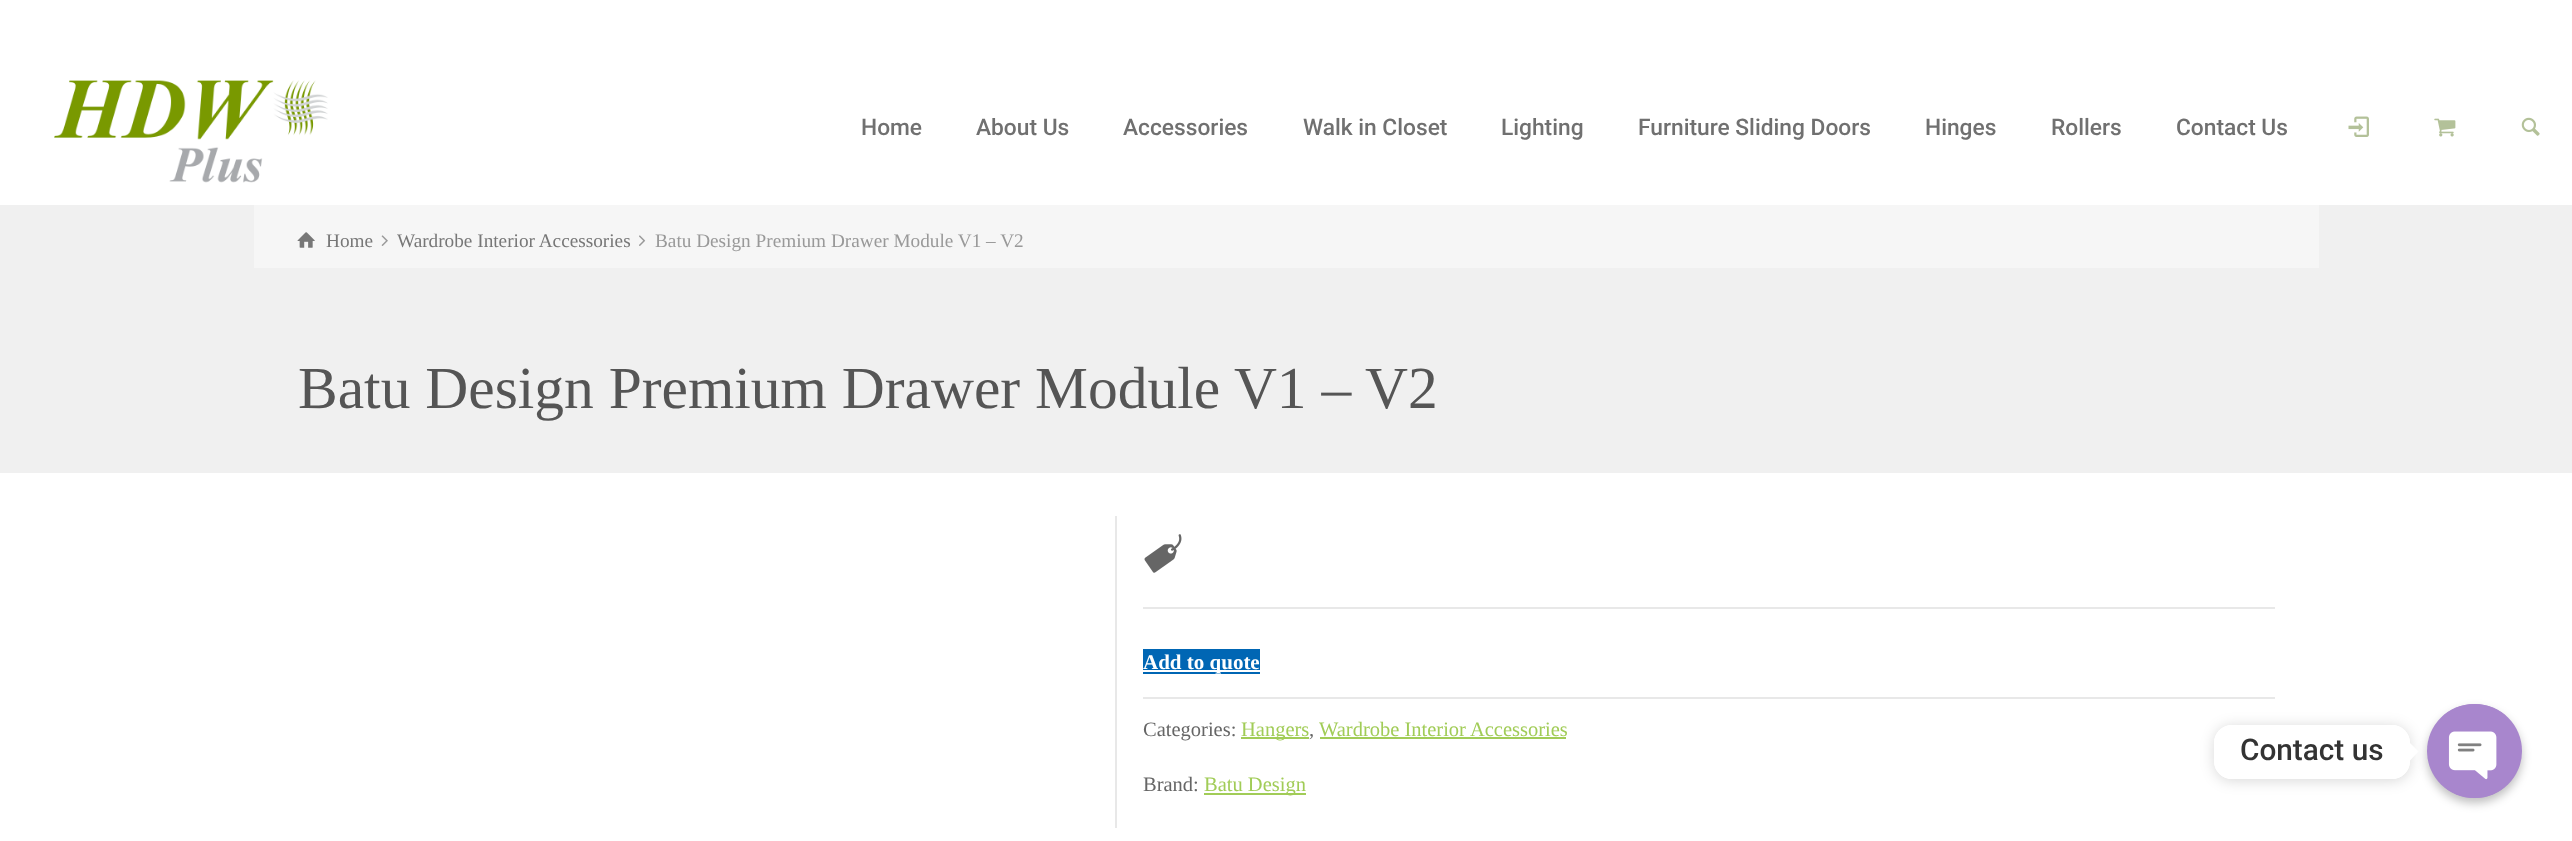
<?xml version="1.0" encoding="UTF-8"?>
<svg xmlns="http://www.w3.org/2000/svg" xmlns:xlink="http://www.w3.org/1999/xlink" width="2572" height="841">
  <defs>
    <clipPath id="clip1"><path d="M 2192 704 h 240 v 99 h -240 z m 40 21 h 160 c 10 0 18 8 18 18 v 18 c 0 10 -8 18 -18 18 h -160 c -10 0 -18 -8 -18 -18 v -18 c 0 -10 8 -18 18 -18 z" clip-rule="evenodd" /></clipPath>
  </defs>
  <rect width="100%" height="100%" fill="#ffffff" />
  <image x="54" y="80" width="274" height="103" xlink:href="image1.png" />
  <image x="2348" y="116" width="21" height="21" xlink:href="image2.png" />
  <image x="2434" y="118" width="22" height="19" xlink:href="image3.png" />
  <image x="2521" y="117" width="19" height="19" xlink:href="image4.png" />
  <rect y="205" width="2572" height="268" fill="#f0f0f0" />
  <rect x="254" y="205" width="2065" height="63" fill="#f6f6f6" />
  <image x="297" y="232" width="18" height="16" xlink:href="image5.png" />
  <image x="381" y="235" width="7" height="11" xlink:href="image6.png" />
  <image x="639" y="235" width="7" height="11" xlink:href="image7.png" />
  <rect x="1115" y="516" width="2" height="312" fill="#e8e8e8" />
  <rect x="1143" y="607" width="1132" height="2" fill="#e8e8e8" />
  <image x="1144" y="534" width="38" height="39" xlink:href="image8.png" />
  <rect x="1143" y="649" width="117" height="25" fill="#0066b4" />
  <rect x="1143" y="670" width="117" height="2" fill="#ffffff" />
  <rect x="1143" y="697" width="1132" height="2" fill="#e8e8e8" />
  <rect x="1241" y="737" width="68" height="2" fill="#a1cc57" />
  <rect x="1320" y="737" width="246" height="2" fill="#a1cc57" />
  <rect x="1204" y="793" width="102" height="2" fill="#a1cc57" />
  <g clip-path="url(#clip1)">
    <rect x="2214" y="726" width="196" height="55" rx="18" fill="#000000" fill-opacity="0.15" filter="blur(7px)" />
  </g>
  <rect x="2214" y="725" width="196" height="54" rx="18" fill="#ffffff" />
  <path d="M 2410 760.5 v -17.5 l 8.5 8.5 z" fill="#ffffff" />
  <rect x="2427" y="709" width="95" height="94" rx="47" fill="#000000" fill-opacity="0.25" filter="blur(5px)" />
  <rect x="2427" y="704" width="95" height="94" rx="47" fill="#a886cd" />
  <image x="2444" y="704" width="61" height="94" xlink:href="image9.png" />
  <text x="861" y="135" style="font-family: Roboto; font-size: 22.75px; font-weight: 500; fill: #707070">Home</text>
  <text x="976" y="135" style="font-family: Roboto; font-size: 22.75px; font-weight: 500; fill: #707070">About Us</text>
  <text x="1123" y="135" style="font-family: Roboto; font-size: 22.75px; font-weight: 500; fill: #707070">Accessories</text>
  <text x="1303" y="135" style="font-family: Roboto; font-size: 22.75px; font-weight: 500; fill: #707070">Walk in Closet</text>
  <text x="1501" y="135" style="font-family: Roboto; font-size: 22.75px; font-weight: 500; fill: #707070">Lighting</text>
  <text x="1638" y="135" style="font-family: Roboto; font-size: 22.75px; font-weight: 500; fill: #707070">Furniture Sliding Doors</text>
  <text x="1925" y="135" style="font-family: Roboto; font-size: 22.75px; font-weight: 500; fill: #707070">Hinges</text>
  <text x="2051" y="135" style="font-family: Roboto; font-size: 22.75px; font-weight: 500; fill: #707070">Rollers</text>
  <text x="2176" y="135" style="font-family: Roboto; font-size: 22.75px; font-weight: 500; fill: #707070">Contact Us</text>
  <text x="326" y="247" style="font-family: Liberation Serif; font-size: 19.25px; fill: #777777">Home</text>
  <text x="397" y="247" style="font-family: Liberation Serif; font-size: 19.25px; fill: #777777">Wardrobe Interior Accessories</text>
  <text x="655" y="247" style="font-family: Liberation Serif; font-size: 19.25px; fill: #999999">Batu Design Premium Drawer Module V1 – V2</text>
  <text x="298" y="408" style="font-family: Liberation Serif; font-size: 59.5px; fill: #555555">Batu Design Premium Drawer Module V1 – V2</text>
  <text x="1143" y="669" style="font-family: Liberation Serif; font-size: 21px; font-weight: bold; fill: #ffffff">Add to quote</text>
  <text x="1143" y="736" style="font-family: Liberation Serif; font-size: 20.5px; fill: #666666">Categories:</text>
  <text x="1241" y="736" style="font-family: Liberation Serif; font-size: 20.5px; fill: #a1cc57">Hangers</text>
  <text x="1309" y="736" style="font-family: Liberation Serif; font-size: 20.5px; fill: #666666">,</text>
  <text x="1319" y="736" style="font-family: Liberation Serif; font-size: 20.5px; fill: #a1cc57">Wardrobe Interior Accessories</text>
  <text x="1143" y="791" style="font-family: Liberation Serif; font-size: 20.5px; fill: #666666">Brand:</text>
  <text x="1204" y="791" style="font-family: Liberation Serif; font-size: 20.5px; fill: #a1cc57">Batu Design</text>
  <text x="2240" y="760" style="font-family: Roboto; font-size: 29.75px; font-weight: 500; fill: #333333">Contact us</text>
</svg>
